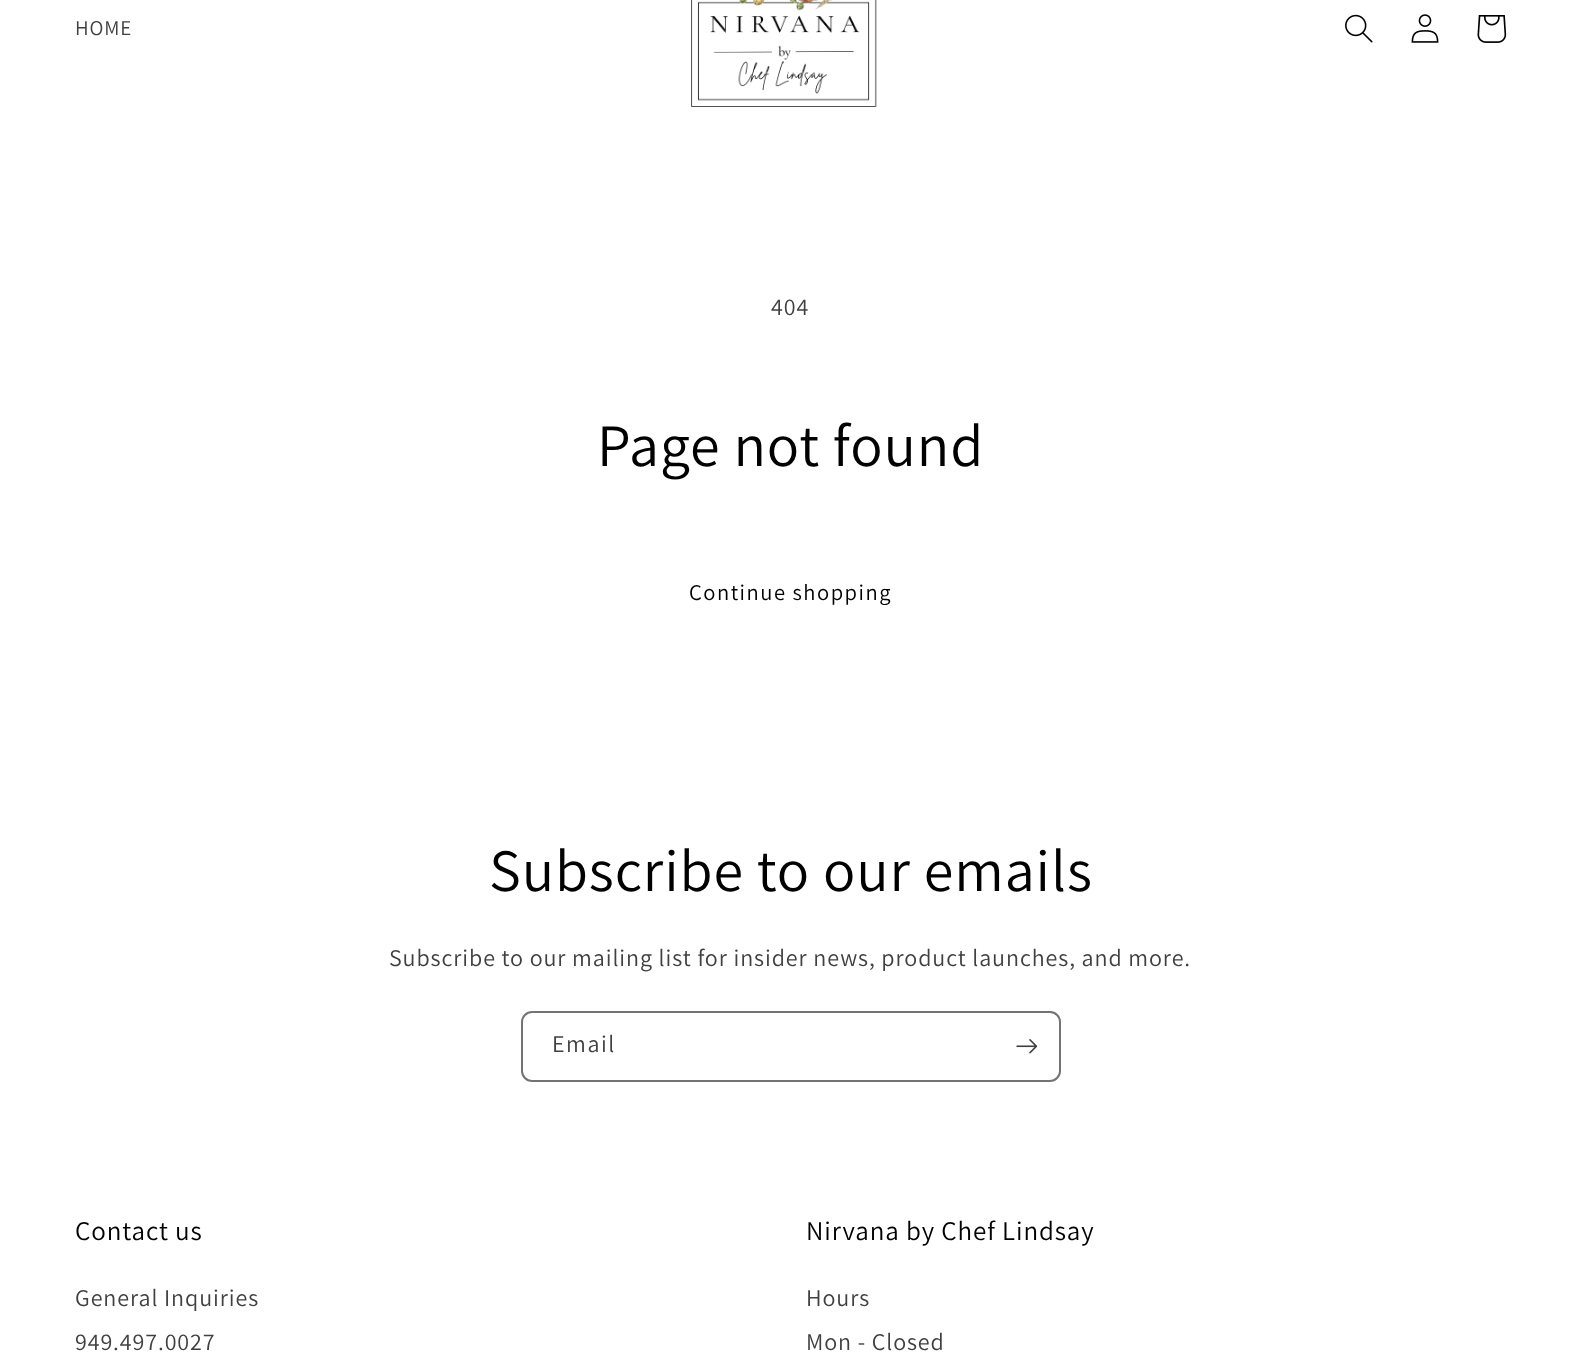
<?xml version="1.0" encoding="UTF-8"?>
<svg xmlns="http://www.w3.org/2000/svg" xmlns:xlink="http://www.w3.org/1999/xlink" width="1581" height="1358">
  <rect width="100%" height="100%" fill="#ffffff" />
  <image x="691" y="0" width="186" height="107" xlink:href="image1.png" />
  <image x="1345" y="14" width="28" height="29" xlink:href="image2.png" />
  <image x="1411" y="14" width="28" height="29" xlink:href="image3.png" />
  <image x="1477" y="15" width="30" height="28" xlink:href="image4.png" />
  <rect x="522" y="1012" width="538" height="69" rx="10" fill="none" stroke="#737373" stroke-width="2" />
  <image x="1016" y="1039" width="22" height="15" xlink:href="image5.png" />
  <text x="75" y="35" style="font-family: Assistant; font-size: 21px; letter-spacing: 0.9px; fill: #404040">HOME</text>
  <text x="771" y="315" style="font-family: Assistant; font-size: 24px; letter-spacing: 0.9px; fill: #404040">404</text>
  <text x="597" y="466" style="font-family: Assistant; font-size: 60px; letter-spacing: 0.9px; fill: #000000">Page not found</text>
  <text x="689" y="600" style="font-family: Assistant; font-size: 22.5px; letter-spacing: 1.5px; fill: #000000">Continue shopping</text>
  <text x="489" y="891" style="font-family: Assistant; font-size: 60px; letter-spacing: 0.9px; fill: #000000">Subscribe to our emails</text>
  <text x="389" y="966" style="font-family: Assistant; font-size: 24px; letter-spacing: 0.9px; fill: #404040">Subscribe to our mailing list for insider news, product launches, and more.</text>
  <text x="552" y="1052" style="font-family: Assistant; font-size: 24px; letter-spacing: 1.5px; fill: #404040">Email</text>
  <text x="75" y="1240" style="font-family: Assistant; font-size: 27px; letter-spacing: 0.9px; fill: #000000">Contact us</text>
  <text x="75" y="1306" style="font-family: Assistant; font-size: 24px; letter-spacing: 0.9px; fill: #404040">General Inquiries</text>
  <text x="75" y="1350" style="font-family: Assistant; font-size: 24px; letter-spacing: 0.9px; fill: #404040">949.497.0027</text>
  <text x="806" y="1240" style="font-family: Assistant; font-size: 27px; letter-spacing: 0.9px; fill: #000000">Nirvana by Chef Lindsay</text>
  <text x="806" y="1306" style="font-family: Assistant; font-size: 24px; letter-spacing: 0.9px; fill: #404040">Hours</text>
  <text x="806" y="1350" style="font-family: Assistant; font-size: 24px; letter-spacing: 0.9px; fill: #404040">Mon - Closed</text>
</svg>
